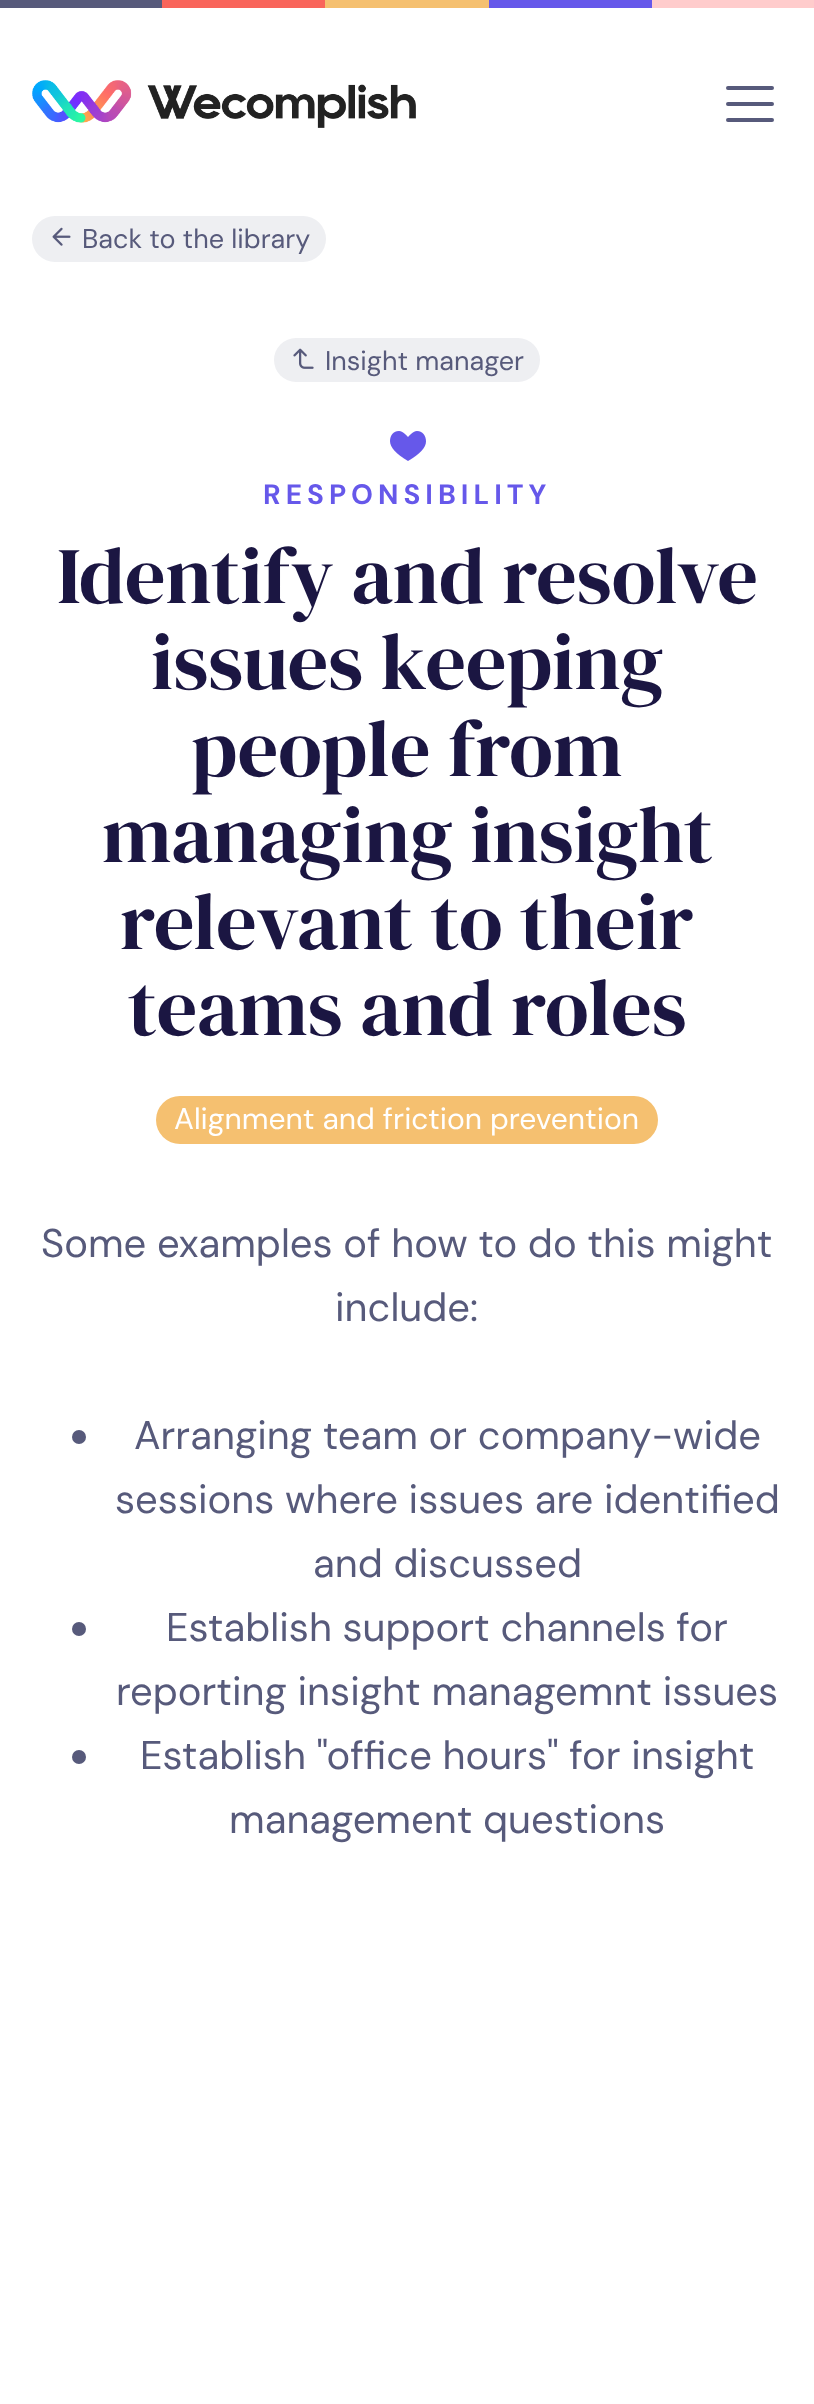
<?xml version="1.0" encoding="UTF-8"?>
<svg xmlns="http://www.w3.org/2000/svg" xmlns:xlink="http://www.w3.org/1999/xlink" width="814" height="2404">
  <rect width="100%" height="100%" fill="#ffffff" />
  <image x="0" y="0" width="814" height="8" xlink:href="image1.png" />
  <image x="32" y="80" width="384" height="48" xlink:href="image2.png" />
  <path d="M 728 88 h 44 m -44 16 h 44 m -44 16 h 44" fill="none" stroke="#575a7b" stroke-width="4" stroke-linecap="round" />
  <rect x="32" y="216" width="294" height="46" rx="23" fill="#eeeff2" />
  <image x="52" y="227" width="19" height="19" xlink:href="image3.png" />
  <rect x="274" y="338" width="266" height="44" rx="22" fill="#eeeff2" />
  <image x="293" y="348" width="21" height="21" xlink:href="image4.png" />
  <image x="390" y="431" width="36" height="30" xlink:href="image5.png" />
  <rect x="156" y="1096" width="502" height="48" rx="24" fill="#f5c070" />
  <circle cx="79" cy="1437" r="7" fill="#575a7b" />
  <circle cx="79" cy="1629" r="7" fill="#575a7b" />
  <circle cx="79" cy="1757" r="7" fill="#575a7b" />
  <text x="82" y="248" style="font-family: DM Sans; font-size: 27px; fill: #575a7b">Back to the library</text>
  <text x="325" y="370" style="font-family: DM Sans; font-size: 27px; fill: #575a7b">Insight manager</text>
  <text x="263" y="504" style="font-family: DM Sans; font-size: 28px; font-weight: bold; letter-spacing: 5px; fill: #6658ea">RESPONSIBILITY</text>
  <text x="57" y="603" style="font-family: DM Serif Display; font-size: 80px; fill: #1b1642">Identify and resolve</text>
  <text x="151" y="689" style="font-family: DM Serif Display; font-size: 80px; fill: #1b1642">issues keeping</text>
  <text x="191" y="776" style="font-family: DM Serif Display; font-size: 80px; fill: #1b1642">people from</text>
  <text x="102" y="862" style="font-family: DM Serif Display; font-size: 80px; fill: #1b1642">managing insight</text>
  <text x="120" y="949" style="font-family: DM Serif Display; font-size: 80px; fill: #1b1642">relevant to their</text>
  <text x="128" y="1035" style="font-family: DM Serif Display; font-size: 80px; fill: #1b1642">teams and roles</text>
  <text x="174" y="1129" style="font-family: DM Sans; font-size: 30px; fill: #ffffff">Alignment and friction prevention</text>
  <text x="41" y="1257" style="font-family: DM Sans; font-size: 40px; fill: #575a7b">Some examples of how to do this might</text>
  <text x="335" y="1321" style="font-family: DM Sans; font-size: 40px; fill: #575a7b">include:</text>
  <text x="134" y="1449" style="font-family: DM Sans; font-size: 40px; fill: #575a7b">Arranging team or company-wide</text>
  <text x="115" y="1513" style="font-family: DM Sans; font-size: 40px; fill: #575a7b">sessions where issues are identified</text>
  <text x="313" y="1577" style="font-family: DM Sans; font-size: 40px; fill: #575a7b">and discussed</text>
  <text x="166" y="1641" style="font-family: DM Sans; font-size: 40px; fill: #575a7b">Establish support channels for</text>
  <text x="116" y="1705" style="font-family: DM Sans; font-size: 40px; fill: #575a7b">reporting insight managemnt issues</text>
  <text x="140" y="1769" style="font-family: DM Sans; font-size: 40px; fill: #575a7b">Establish "office hours" for insight</text>
  <text x="229" y="1833" style="font-family: DM Sans; font-size: 40px; fill: #575a7b">management questions</text>
</svg>
